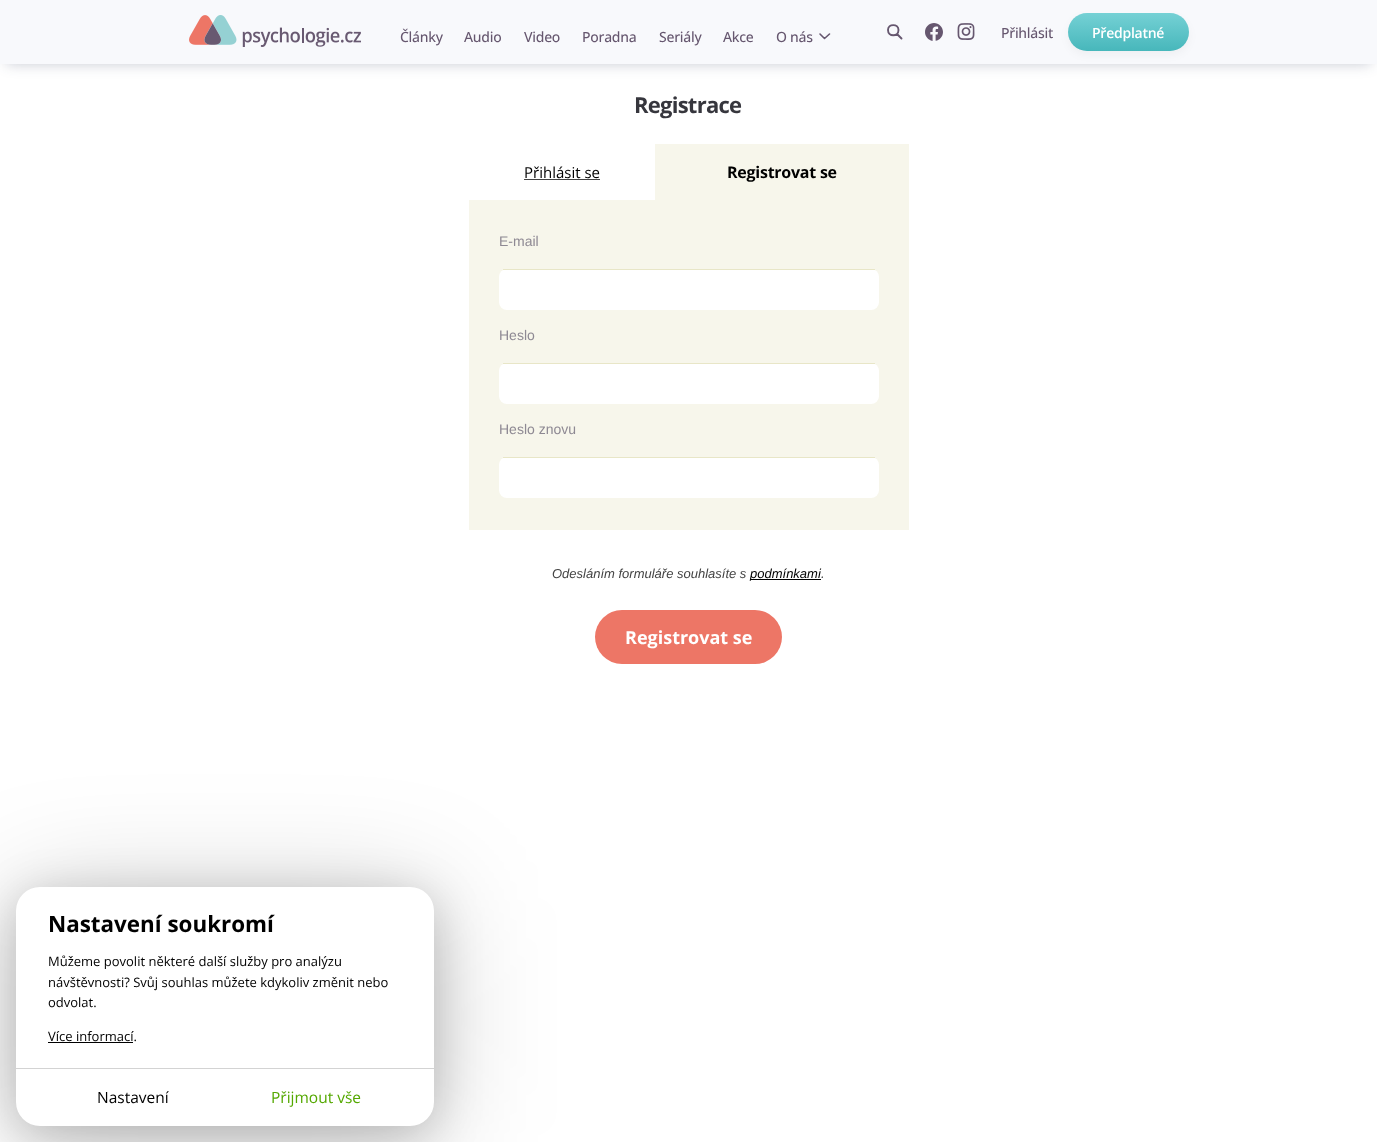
<?xml version="1.0" encoding="UTF-8"?>
<svg xmlns="http://www.w3.org/2000/svg" xmlns:xlink="http://www.w3.org/1999/xlink" width="1377" height="1142">
  <defs>
    <linearGradient id="g1" gradientUnits="userSpaceOnUse" x1="1129" y1="13" x2="1129" y2="51"><stop offset="0" stop-color="#75d1d5" /><stop offset="1" stop-color="#47b7bb" /></linearGradient>
  </defs>
  <rect width="100%" height="100%" fill="#ffffff" />
  <rect x="6" y="12" width="1365" height="52" fill="#18274b" fill-opacity="0.24" filter="blur(7px)" />
  <rect width="1377" height="64" fill="#f8f9fc" />
  <image x="189" y="15" width="172" height="32" xlink:href="image1.png" />
  <path d="M 829.5 34 l -5 4.5 l -4.5 -4.5" fill="none" stroke="#66576f" stroke-width="1.6" stroke-linecap="round" stroke-linejoin="round" />
  <path d="M 901.5 38.5 l -4.5 -4.5 m 1.5 -4 c 0 7 -10.5 7 -10.5 0 c 0 -6.5 10.5 -6.5 10.5 0 z" fill="none" stroke="#66576f" stroke-width="1.9" stroke-linecap="round" stroke-linejoin="round" />
  <image x="925" y="23" width="18" height="18" xlink:href="image2.png" />
  <image x="957" y="23" width="18" height="17" xlink:href="image3.png" />
  <rect x="1068" y="17" width="121" height="38" rx="19" fill="#000000" fill-opacity="0.04" filter="blur(4px)" />
  <rect x="1068" y="13" width="121" height="38" rx="19" fill="url(#g1)" />
  <rect x="524" y="179" width="76" height="1" fill="#434343" />
  <rect x="655" y="144" width="254" height="56" fill="#f7f6eb" />
  <rect x="469" y="200" width="440" height="330" fill="#f7f6eb" />
  <rect x="499" y="269" width="380" height="41" rx="8" fill="#ffffff" />
  <rect x="503" y="269" width="372" height="1" fill="#e8e6c7" />
  <rect x="499" y="363" width="380" height="41" rx="8" fill="#ffffff" />
  <rect x="503" y="363" width="372" height="1" fill="#e8e6c7" />
  <rect x="499" y="457" width="380" height="41" rx="8" fill="#ffffff" />
  <rect x="503" y="457" width="372" height="1" fill="#e8e6c7" />
  <rect x="750" y="579" width="71" height="1" fill="#000000" />
  <rect x="595" y="610" width="187" height="54" rx="27" fill="#ed7666" />
  <rect x="16" y="897" width="418" height="239" rx="24" fill="#000000" fill-opacity="0.2" filter="blur(58.5px)" />
  <rect x="16" y="897" width="418" height="239" rx="24" fill="#000000" fill-opacity="0.2" filter="blur(23.5px)" />
  <rect x="16" y="887" width="418" height="239" rx="24" fill="#ffffff" />
  <rect x="48" y="1042" width="85" height="1" fill="#000000" />
  <rect x="16" y="1068" width="418" height="1" fill="#d3d3d3" />
  <text x="400" y="42" style="font-family: Open Sans; font-size: 14px; font-weight: 500; letter-spacing: -0.25px; fill: #66576f">Články</text>
  <text x="464" y="42" style="font-family: Open Sans; font-size: 14px; font-weight: 500; letter-spacing: -0.25px; fill: #66576f">Audio</text>
  <text x="524" y="42" style="font-family: Open Sans; font-size: 14px; font-weight: 500; letter-spacing: -0.25px; fill: #66576f">Video</text>
  <text x="582" y="42" style="font-family: Open Sans; font-size: 14px; font-weight: 500; letter-spacing: -0.25px; fill: #66576f">Poradna</text>
  <text x="659" y="42" style="font-family: Open Sans; font-size: 14px; font-weight: 500; letter-spacing: -0.25px; fill: #66576f">Seriály</text>
  <text x="723" y="42" style="font-family: Open Sans; font-size: 14px; font-weight: 500; letter-spacing: -0.25px; fill: #66576f">Akce</text>
  <text x="776" y="42" style="font-family: Open Sans; font-size: 14px; font-weight: 500; letter-spacing: -0.25px; fill: #66576f">O nás</text>
  <text x="1001" y="38" style="font-family: Open Sans; font-size: 14px; font-weight: 500; letter-spacing: -0.25px; fill: #66576f">Přihlásit</text>
  <text x="1092" y="38" style="font-family: Open Sans; font-size: 14px; font-weight: 600; letter-spacing: -0.25px; fill: #ffffff">Předplatné</text>
  <text x="634" y="113" style="font-family: Open Sans; font-size: 22px; font-weight: bold; letter-spacing: -0.75px; fill: #36363d">Registrace</text>
  <text x="524" y="178" style="font-family: Open Sans; font-size: 15px; fill: #000000">Přihlásit se</text>
  <text x="727" y="178" style="font-family: Open Sans; font-size: 16px; font-weight: bold; letter-spacing: -0.25px; fill: #000000">Registrovat se</text>
  <text x="499" y="246" style="font-family: Liberation Sans; font-size: 14px; fill: #8e8993">E-mail</text>
  <text x="499" y="340" style="font-family: Liberation Sans; font-size: 14px; fill: #8e8993">Heslo</text>
  <text x="499" y="434" style="font-family: Liberation Sans; font-size: 14px; fill: #8e8993">Heslo znovu</text>
  <text x="552" y="578" style="font-family: Liberation Sans; font-size: 13px; font-style: italic; fill: #434343">Odesláním formuláře souhlasíte s</text>
  <text x="750" y="578" style="font-family: Liberation Sans; font-size: 13px; font-style: italic; fill: #000000">podmínkami</text>
  <text x="821" y="578" style="font-family: Liberation Sans; font-size: 13px; font-style: italic; fill: #434343">.</text>
  <text x="625" y="644" style="font-family: Open Sans; font-size: 18px; font-weight: bold; fill: #ffffff">Registrovat se</text>
  <text x="48" y="932" style="font-family: Open Sans; font-size: 22.4px; font-weight: bold; fill: #000000">Nastavení soukromí</text>
  <text x="48" y="966" style="font-family: Open Sans; font-size: 13px; fill: #000000">Můžeme povolit některé další služby pro analýzu</text>
  <text x="48" y="987" style="font-family: Open Sans; font-size: 13px; fill: #000000">návštěvnosti? Svůj souhlas můžete kdykoliv změnit nebo</text>
  <text x="48" y="1007" style="font-family: Open Sans; font-size: 13px; fill: #000000">odvolat.</text>
  <text x="48" y="1041" style="font-family: Open Sans; font-size: 13px; fill: #000000">Více informací.</text>
  <text x="97" y="1103" style="font-family: Open Sans; font-size: 15.5px; fill: #000000">Nastavení</text>
  <text x="271" y="1103" style="font-family: Open Sans; font-size: 15.5px; fill: #54a800">Přijmout vše</text>
</svg>
